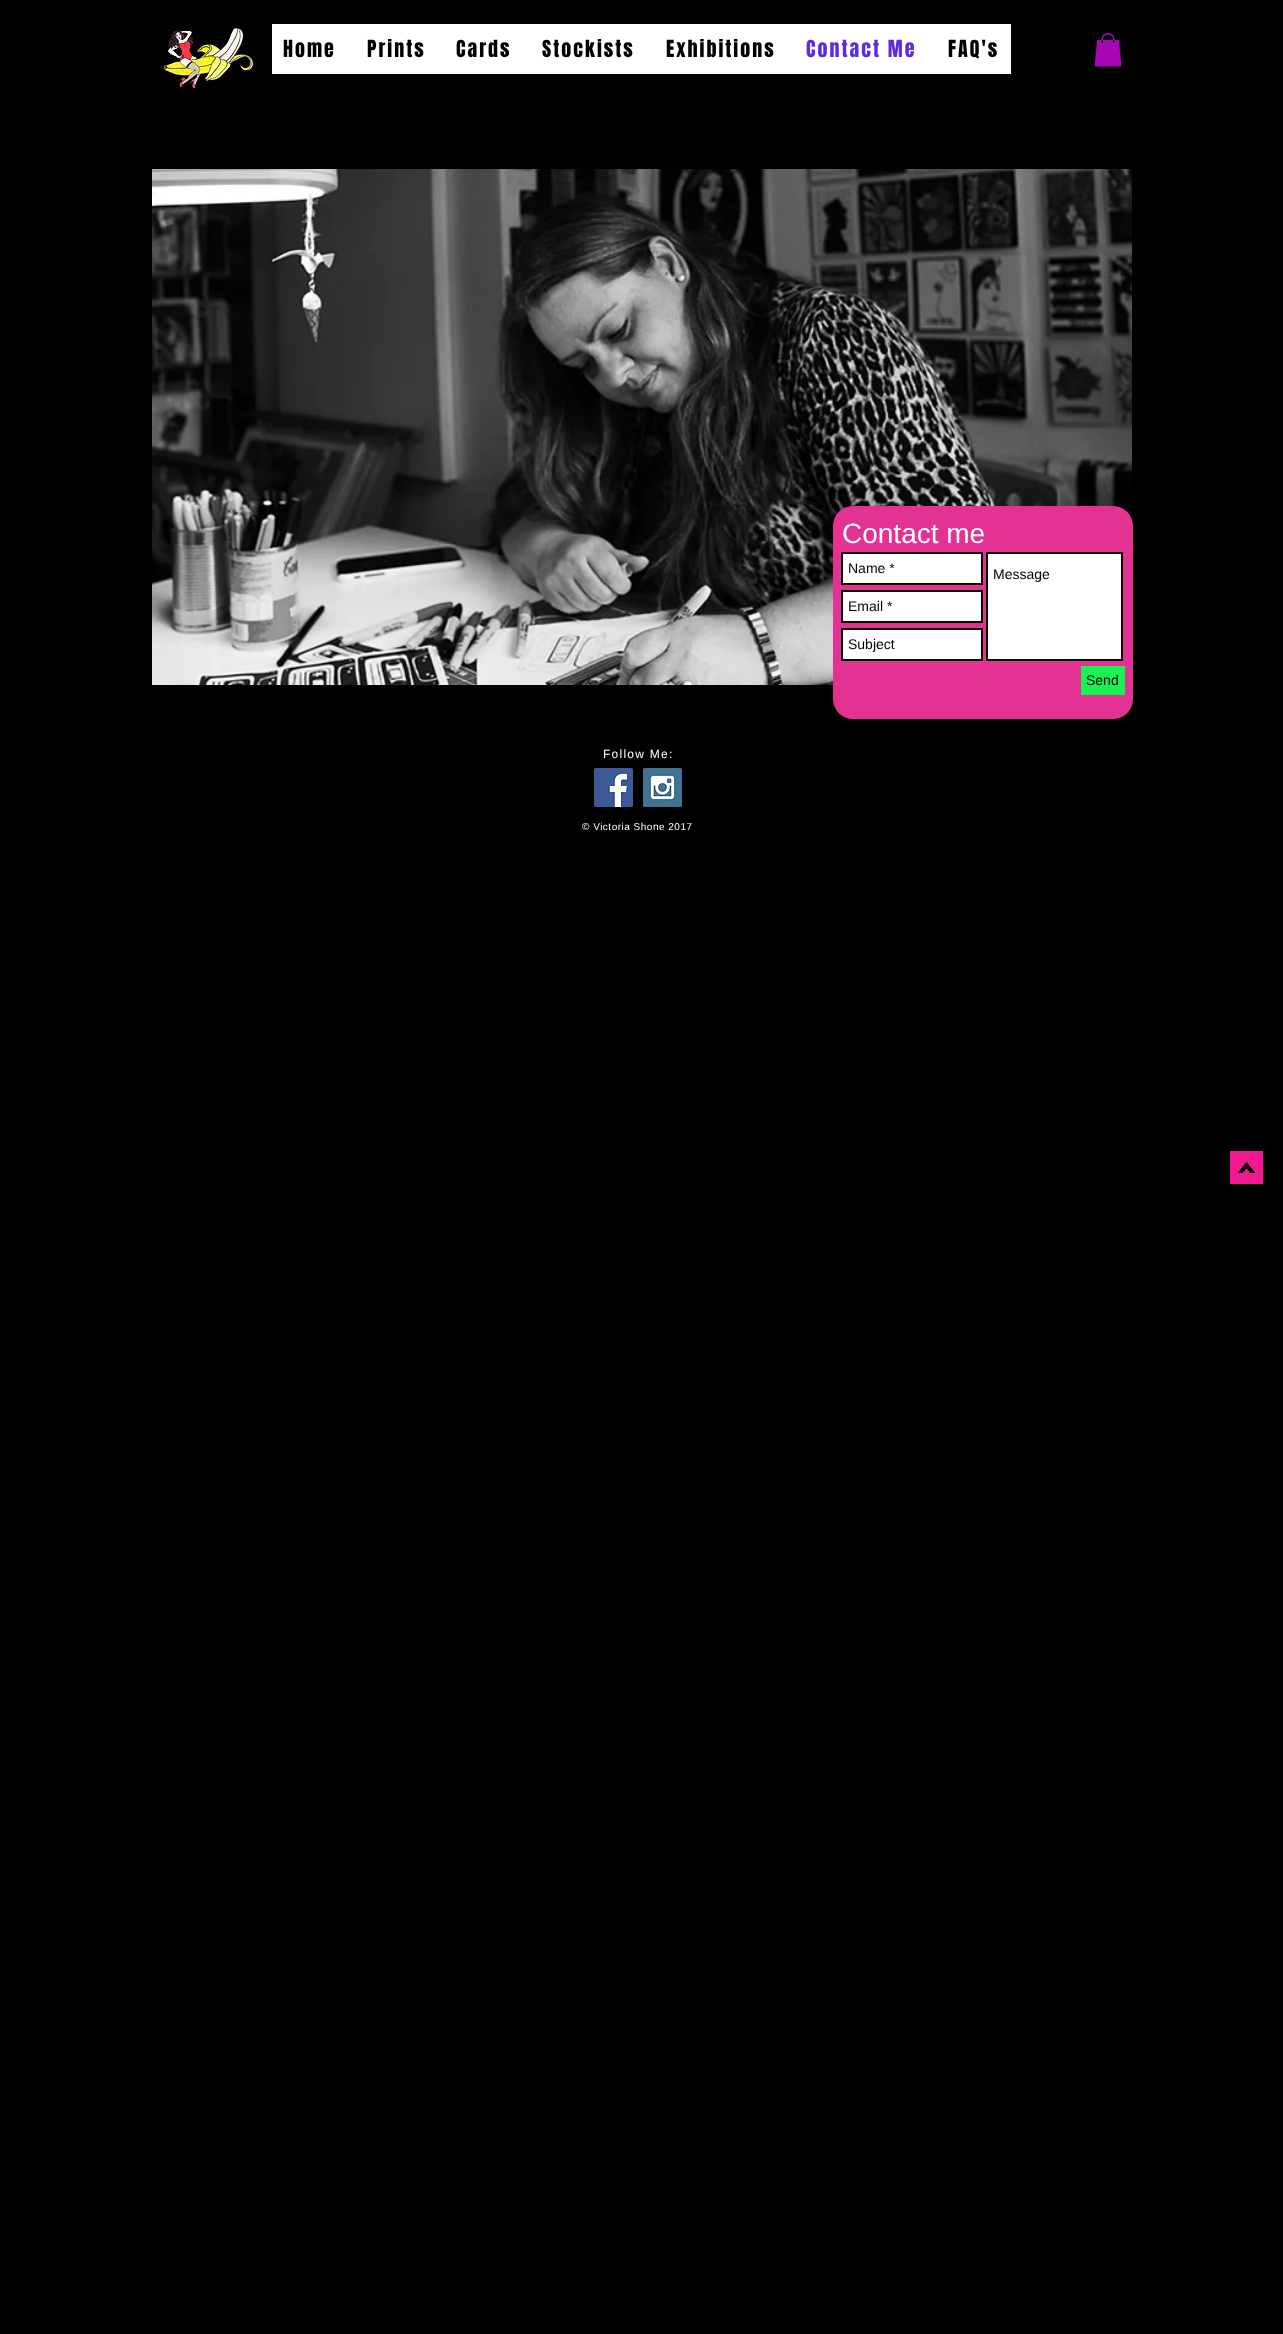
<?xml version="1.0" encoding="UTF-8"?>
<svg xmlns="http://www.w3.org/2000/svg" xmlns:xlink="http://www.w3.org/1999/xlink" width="1283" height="2334">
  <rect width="100%" height="100%" fill="#000000" />
  <image x="161" y="28" width="93" height="61" xlink:href="image1.png" />
  <rect x="272" y="24" width="739" height="50" fill="#ffffff" />
  <image x="1094" y="33" width="28" height="34" xlink:href="image2.png" />
  <image x="152" y="169" width="980" height="516" xlink:href="image3.png" />
  <rect x="833" y="506" width="300" height="213" rx="20" fill="#e43292" />
  <rect x="842" y="553" width="140" height="31" fill="#ffffff" stroke="#000000" stroke-width="2" />
  <rect x="987" y="553" width="135" height="107" fill="#ffffff" stroke="#000000" stroke-width="2" />
  <rect x="842" y="591" width="140" height="31" fill="#ffffff" stroke="#000000" stroke-width="2" />
  <rect x="842" y="629" width="140" height="31" fill="#ffffff" stroke="#000000" stroke-width="2" />
  <rect x="1081" y="666" width="44" height="29" fill="#18f252" />
  <image x="594" y="768" width="39" height="39" xlink:href="image4.png" />
  <image x="643" y="768" width="39" height="39" xlink:href="image5.png" />
  <path d="M 1230 1151 v 33 h 33 v -33 z m 20.5 22 l -4 -4.5 l -4 4.5 h -5 l 9 -11 l 9 11 z" fill="#f21890" />
  <text x="283" y="57" style="font-family: Anton; font-size: 20px; letter-spacing: 2px; fill: #000000">Home</text>
  <text x="367" y="57" style="font-family: Anton; font-size: 20px; letter-spacing: 2px; fill: #000000">Prints</text>
  <text x="456" y="57" style="font-family: Anton; font-size: 20px; letter-spacing: 2px; fill: #000000">Cards</text>
  <text x="542" y="57" style="font-family: Anton; font-size: 20px; letter-spacing: 2px; fill: #000000">Stockists</text>
  <text x="666" y="57" style="font-family: Anton; font-size: 20px; letter-spacing: 2px; fill: #000000">Exhibitions</text>
  <text x="806" y="57" style="font-family: Anton; font-size: 20px; letter-spacing: 2px; fill: #5f2be0">Contact Me</text>
  <text x="948" y="57" style="font-family: Anton; font-size: 20px; letter-spacing: 2px; fill: #000000">FAQ's</text>
  <text x="842" y="543" style="font-family: Liberation Sans; font-size: 28px; fill: #ffffff">Contact me</text>
  <text x="848" y="573" style="font-family: Liberation Sans; font-size: 14px; fill: #000000">Name *</text>
  <text x="993" y="579" style="font-family: Liberation Sans; font-size: 14px; fill: #000000">Message</text>
  <text x="848" y="611" style="font-family: Liberation Sans; font-size: 14px; fill: #000000">Email *</text>
  <text x="848" y="649" style="font-family: Liberation Sans; font-size: 14px; fill: #000000">Subject</text>
  <text x="1086" y="685" style="font-family: Liberation Sans; font-size: 14px; fill: #000000">Send</text>
  <text x="603" y="758" style="font-family: Liberation Sans; font-size: 12px; letter-spacing: 1.25px; fill: #ffffff">Follow Me</text>
  <text x="669" y="758" style="font-family: Liberation Sans; font-size: 12px; fill: #ffffff">:</text>
  <text x="582" y="830" style="font-family: Liberation Sans; font-size: 10px; letter-spacing: 0.5px; fill: #ffffff">© Victoria Shone 2017</text>
</svg>
